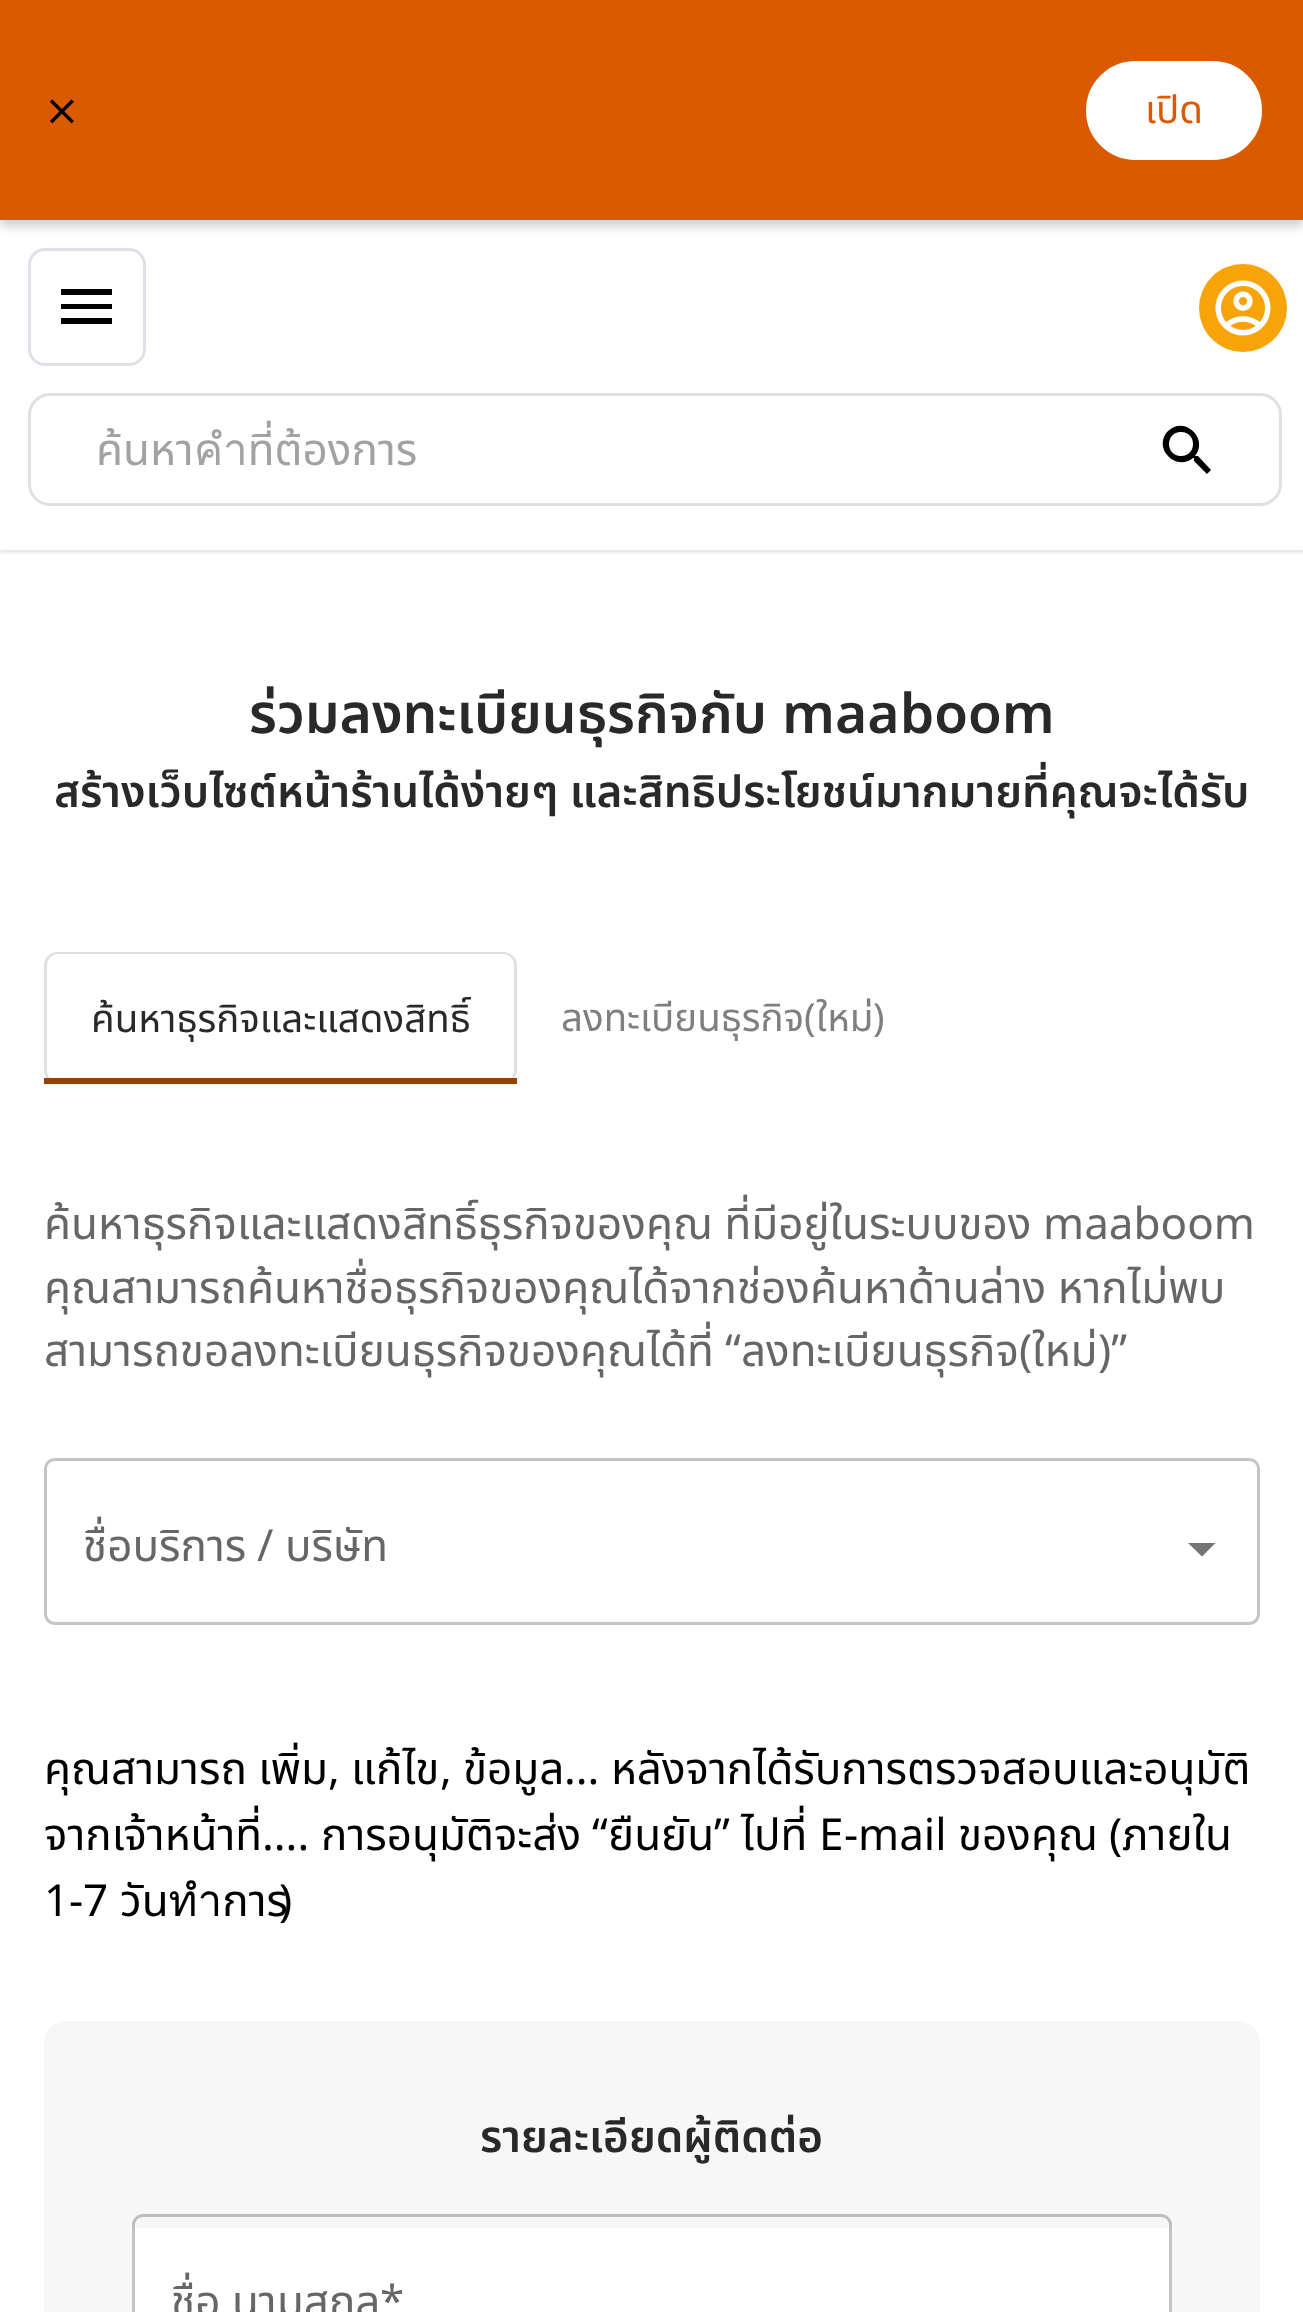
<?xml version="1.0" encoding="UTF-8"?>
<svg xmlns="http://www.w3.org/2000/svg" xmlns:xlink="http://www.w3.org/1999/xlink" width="1303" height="2312">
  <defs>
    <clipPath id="clip1"><rect x="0" y="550" width="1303" height="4" /></clipPath>
    <clipPath id="clip2"><rect x="96" y="418" width="1051" height="66" /></clipPath>
    <clipPath id="clip3"><rect x="83" y="1515" width="305" height="64" /></clipPath>
    <clipPath id="clip4"><rect x="171" y="2272" width="233" height="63" /></clipPath>
  </defs>
  <rect width="100%" height="100%" fill="#ffffff" />
  <rect y="6" width="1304" height="220" fill="#000000" fill-opacity="0.2" filter="blur(5.5px)" />
  <rect width="1303" height="220" fill="#db5a00" />
  <image x="49" y="99" width="25" height="25" xlink:href="image1.png" />
  <rect x="1087.5" y="62.5" width="173" height="96" rx="48" fill="#ffffff" stroke="#ffffff" stroke-width="3" />
  <g clip-path="url(#clip1)">
    <rect y="250" width="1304" height="303" fill="#000000" fill-opacity="0.1" filter="blur(1.5px)" />
  </g>
  <rect x="29.5" y="249.5" width="115" height="115" rx="15.5" fill="none" stroke="#dee2e6" stroke-width="3" />
  <path d="M 61 324 h 51 v -6 h -51 z m 0 -15 h 51 v -5 h -51 z m 0 -20 v 6 h 51 v -6 z" fill="#000000" />
  <circle cx="1243" cy="308" r="44" fill="#f9a30b" />
  <image x="1215" y="280" width="56" height="56" xlink:href="image2.png" />
  <rect x="29.5" y="394.5" width="1251" height="110" rx="20.5" fill="none" stroke="#e0e0e0" stroke-width="3" />
  <path d="M 1198 456 h -3 c 14 -17 -10 -41 -27 -25 c -16 17 8 41 25 27 h 1 v 3 l 13 13 l 4 -4 z m -17 0 c -16 0 -16 -24 0 -24 c 16 0 16 24 0 24 z" fill="#000000" />
  <path d="M 58 952 h 445 c 8 0 14 6 14 13 v 105 c 0 7 -6 14 -14 14 h -445 c -8 0 -14 -7 -14 -14 v -105 c 0 -7 6 -13 14 -13 z m 0 2 h 445 c 6 0 11 5 11 11 v 105 c 0 7 -5 14 -11 14 h -445 c -6 0 -11 -7 -11 -14 v -105 c 0 -6 5 -11 11 -11 z" fill="#e0e0e0" fill-rule="evenodd" />
  <rect x="44" y="1078" width="473" height="6" fill="#994000" />
  <path d="M 1188 1543 l 14 13.5 l 13.5 -13.5 z" fill="#757575" />
  <rect x="45.5" y="1459.5" width="1213" height="164" rx="9.5" fill="none" stroke="#c4c4c4" stroke-width="3" />
  <rect x="44" y="2021" width="1216" height="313" rx="22" fill="#f7f7f7" />
  <rect x="132" y="2228" width="1040" height="84" fill="#ffffff" />
  <rect x="133.5" y="2215.5" width="1037" height="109" rx="9.5" fill="none" stroke="#000000" stroke-opacity="0.23" stroke-width="3" />
  <text x="1145" y="123" style="font-family: Noto Sans Thai; font-size: 38.5px; fill: #db5a00">เปิด</text>
  <g clip-path="url(#clip2)">
    <text x="96" y="465" style="font-family: Noto Sans Thai; font-size: 44px; fill: #a2a2a2">ค้นหาคำที่ต้องการ</text>
  </g>
  <text x="249" y="733" style="font-family: Noto Sans Thai; font-size: 55px; font-weight: 600; fill: #292929">ร่วมลงทะเบียนธุรกิจกับ</text>
  <text x="782" y="733" style="font-family: Noto Sans; font-size: 55px; font-weight: 600; fill: #292929">maaboom</text>
  <text x="54" y="807" style="font-family: Noto Sans Thai; font-size: 44px; font-weight: 600; fill: #292929">สร้างเว็บไซต์หน้าร้านได้ง่ายๆ และสิทธิประโยชน์มากมายที่คุณจะได้รับ</text>
  <text x="91" y="1032" style="font-family: Noto Sans Thai; font-size: 38.5px; fill: #292929">ค้นหาธุรกิจและแสดงสิทธิ์</text>
  <text x="561" y="1031" style="font-family: Noto Sans Thai; font-size: 38.5px; fill: #7f7f7f">ลงทะเบียนธุรกิจ</text>
  <text x="804" y="1031" style="font-family: Noto Sans; font-size: 38.5px; fill: #7f7f7f">(</text>
  <text x="816" y="1031" style="font-family: Noto Sans Thai; font-size: 38.5px; fill: #7f7f7f">ใหม่</text>
  <text x="873" y="1031" style="font-family: Noto Sans; font-size: 38.5px; fill: #7f7f7f">)</text>
  <text x="44" y="1239" style="font-family: Noto Sans Thai; font-size: 44px; fill: #666666">ค้นหาธุรกิจและแสดงสิทธิ์ธุรกิจของคุณ ที่มีอยู่ในระบบของ</text>
  <text x="1043" y="1239" style="font-family: Noto Sans; font-size: 44px; fill: #666666">maaboom</text>
  <text x="44" y="1303" style="font-family: Noto Sans Thai; font-size: 44px; fill: #666666">คุณสามารถค้นหาชื่อธุรกิจของคุณได้จากช่องค้นหาด้านล่าง หากไม่พบ</text>
  <text x="44" y="1366" style="font-family: Noto Sans Thai; font-size: 44px; fill: #666666">สามารถขอลงทะเบียนธุรกิจของคุณได้ที่</text>
  <text x="725" y="1366" style="font-family: Noto Sans; font-size: 44px; fill: #666666">“</text>
  <text x="741" y="1366" style="font-family: Noto Sans Thai; font-size: 44px; fill: #666666">ลงทะเบียนธุรกิจ</text>
  <text x="1019" y="1366" style="font-family: Noto Sans; font-size: 44px; fill: #666666">(</text>
  <text x="1032" y="1366" style="font-family: Noto Sans Thai; font-size: 44px; fill: #666666">ใหม่</text>
  <text x="1098" y="1366" style="font-family: Noto Sans; font-size: 44px; fill: #666666">)”</text>
  <g clip-path="url(#clip3)">
    <text x="83" y="1561" style="font-family: Noto Sans Thai; font-size: 44px; fill: #666666">ชื่อบริการ</text>
  </g>
  <text x="257" y="1561" style="font-family: Noto Sans; font-size: 44px; fill: #666666">/</text>
  <text x="285" y="1561" style="font-family: Noto Sans Thai; font-size: 44px; fill: #666666">บริษัท</text>
  <text x="44" y="1784" style="font-family: Noto Sans Thai; font-size: 44px; fill: #000000">คุณสามารถ เพิ่ม</text>
  <text x="328" y="1784" style="font-family: Noto Sans; font-size: 44px; fill: #000000">,</text>
  <text x="351" y="1784" style="font-family: Noto Sans Thai; font-size: 44px; fill: #000000">แก้ไข</text>
  <text x="440" y="1784" style="font-family: Noto Sans; font-size: 44px; fill: #000000">,</text>
  <text x="463" y="1784" style="font-family: Noto Sans Thai; font-size: 44px; fill: #000000">ข้อมูล</text>
  <text x="564" y="1784" style="font-family: Noto Sans; font-size: 44px; fill: #000000">...</text>
  <text x="611" y="1784" style="font-family: Noto Sans Thai; font-size: 44px; fill: #000000">หลังจากได้รับการตรวจสอบและอนุมัติ</text>
  <text x="44" y="1850" style="font-family: Noto Sans Thai; font-size: 44px; fill: #000000">จากเจ้าหน้าที่</text>
  <text x="321" y="1850" style="font-family: Noto Sans Thai; font-size: 44px; fill: #000000">การอนุมัติจะส่ง</text>
  <text x="741" y="1850" style="font-family: Noto Sans Thai; font-size: 44px; fill: #000000">ไปที่</text>
  <text x="858" y="1850" style="font-family: Noto Sans; font-size: 44px; fill: #000000">mail</text>
  <text x="1122" y="1850" style="font-family: Noto Sans Thai; font-size: 44px; fill: #000000">ภายใน</text>
  <text x="592" y="1850" style="font-family: Noto Sans; font-size: 44px; fill: #000000">“</text>
  <text x="608" y="1850" style="font-family: Noto Sans Thai; font-size: 44px; fill: #000000">ยืนยัน</text>
  <text x="714" y="1850" style="font-family: Noto Sans; font-size: 44px; fill: #000000">”</text>
  <text x="819" y="1850" style="font-family: Noto Sans; font-size: 44px; fill: #000000">E</text>
  <text x="844" y="1850" style="font-family: Noto Sans Thai; font-size: 44px; fill: #000000">-</text>
  <text x="958" y="1850" style="font-family: Noto Sans Thai; font-size: 44px; fill: #000000">ของคุณ</text>
  <text x="1109" y="1850" style="font-family: Noto Sans; font-size: 44px; fill: #000000">(</text>
  <text x="262" y="1850" style="font-family: Noto Sans; font-size: 44px; fill: #000000">....</text>
  <text x="44" y="1916" style="font-family: Noto Sans; font-size: 44px; fill: #000000">1</text>
  <text x="69" y="1916" style="font-family: Noto Sans Thai; font-size: 44px; fill: #000000">-</text>
  <text x="83" y="1916" style="font-family: Noto Sans; font-size: 44px; fill: #000000">7</text>
  <text x="120" y="1916" style="font-family: Noto Sans Thai; font-size: 44px; fill: #000000">วันทำการ</text>
  <text x="279" y="1916" style="font-family: Noto Sans; font-size: 44px; fill: #000000">)</text>
  <text x="480" y="2152" style="font-family: Noto Sans Thai; font-size: 44px; font-weight: 600; fill: #292929">รายละเอียดผู้ติดต่อ</text>
  <g clip-path="url(#clip4)">
    <text x="171" y="2317" style="font-family: Noto Sans Thai; font-size: 44px; fill: #666666">ชื่อ นามสกุล</text>
  </g>
  <text x="380" y="2317" style="font-family: Noto Sans; font-size: 44px; fill: #666666">*</text>
</svg>
